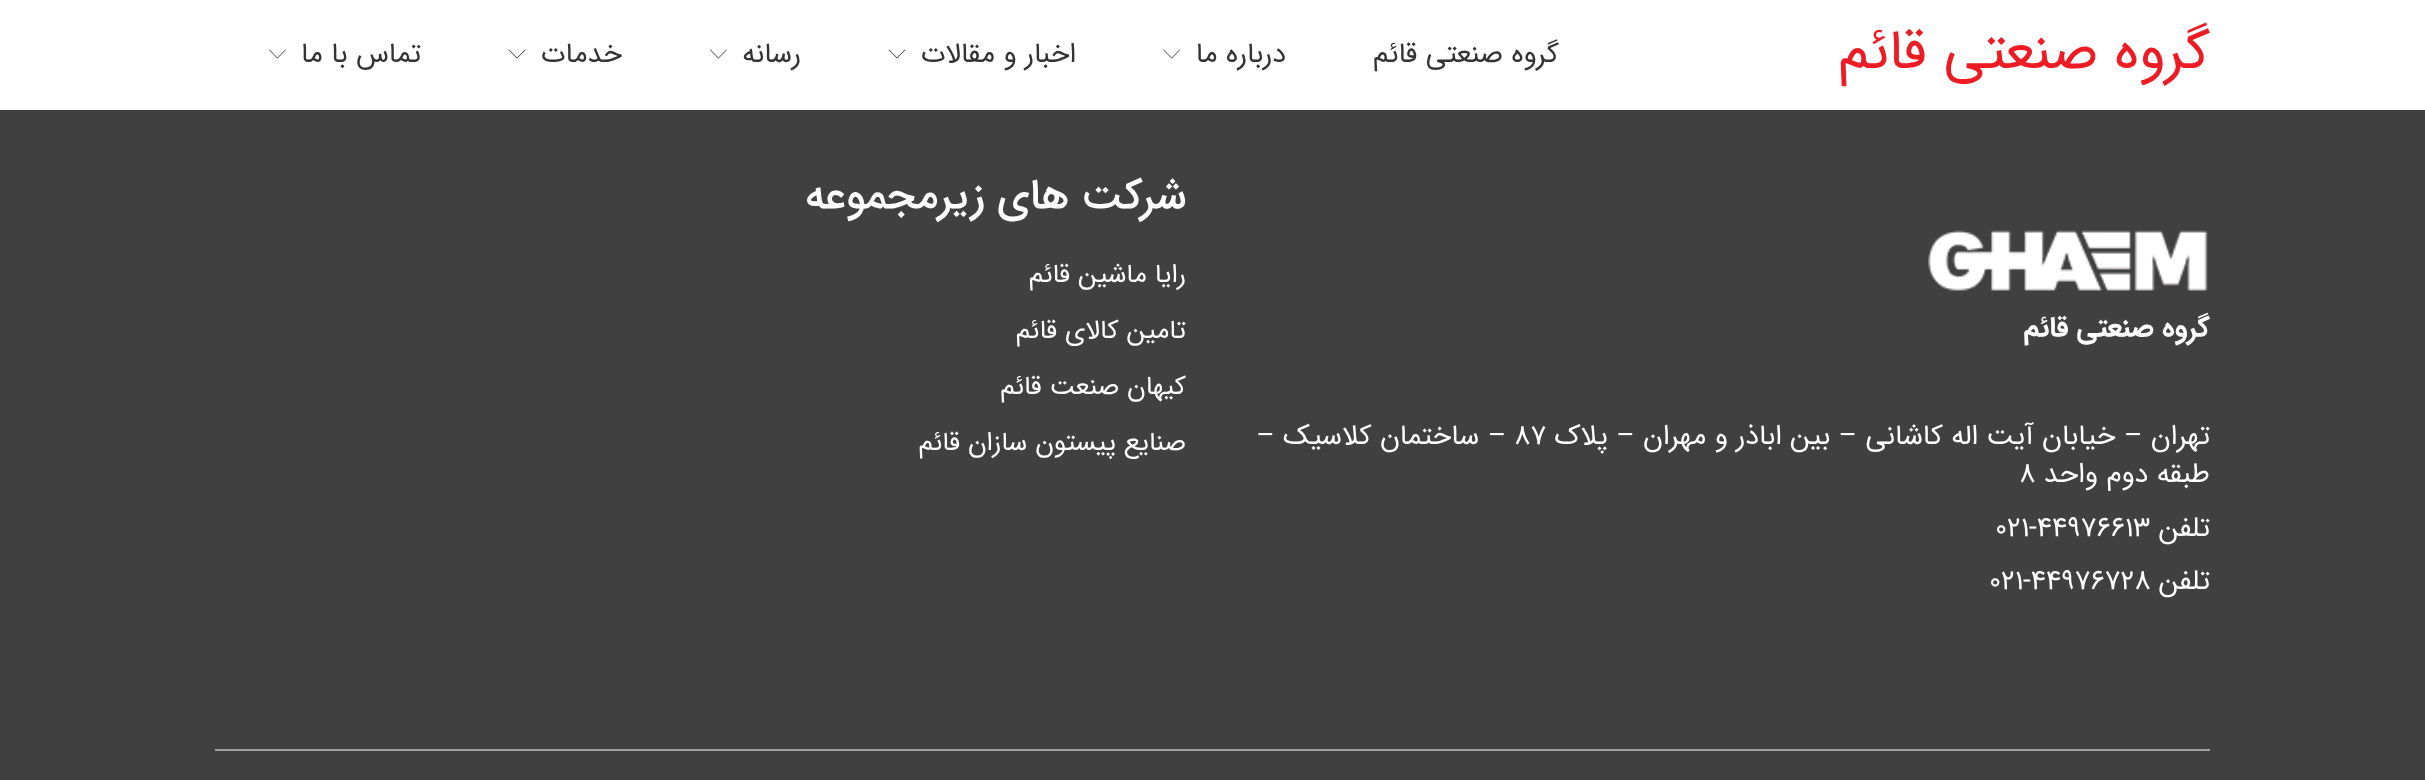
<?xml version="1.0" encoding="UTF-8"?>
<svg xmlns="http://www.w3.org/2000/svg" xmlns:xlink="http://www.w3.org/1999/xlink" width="2425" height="780">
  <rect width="100%" height="100%" fill="#404040" />
  <rect width="2425" height="110" fill="#ffffff" />
  <image x="1163" y="49" width="17" height="10" xlink:href="image1.png" />
  <path d="M 897 58.5 l -8.5 -8.5 l 0.5 -0.5 l 8 8 l 8 -8 l 0.5 0.5 z" fill="#333333" />
  <image x="710" y="49" width="17" height="10" xlink:href="image2.png" />
  <path d="M 517 58.5 l -8.5 -8.5 l 0.5 -0.5 l 8 8 l 8 -8 l 0.5 0.5 z" fill="#333333" />
  <image x="269" y="49" width="17" height="10" xlink:href="image2.png" />
  <image x="1928" y="230" width="280" height="61" xlink:href="image3.png" />
  <rect x="215" y="749" width="1995" height="2" fill="#a0a0a0" />
  <text x="2210" y="68" style="font-family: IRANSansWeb; font-size: 56px; direction: rtl; fill: #ed1c24">گروه صنعتی قائم</text>
  <text x="1559" y="62" style="font-family: IRANSansWeb; font-size: 28px; direction: rtl; fill: #333333">گروه صنعتی قائم</text>
  <text x="1286" y="62" style="font-family: IRANSansWeb; font-size: 28px; direction: rtl; fill: #333333">درباره ما</text>
  <text x="1076" y="62" style="font-family: IRANSansWeb; font-size: 28px; direction: rtl; fill: #333333">اخبار و مقالات</text>
  <text x="801" y="62" style="font-family: IRANSansWeb; font-size: 28px; direction: rtl; fill: #333333">رسانه</text>
  <text x="622" y="62" style="font-family: IRANSansWeb; font-size: 28px; direction: rtl; fill: #333333">خدمات</text>
  <text x="421" y="62" style="font-family: IRANSansWeb; font-size: 28px; direction: rtl; fill: #333333">تماس با ما</text>
  <text x="2210" y="336" style="font-family: IRANSansWeb; font-size: 28px; font-weight: bold; direction: rtl; fill: #ffffff">گروه صنعتی قائم</text>
  <text x="2210" y="444" style="font-family: IRANSansWeb; font-size: 28px; direction: rtl; fill: #ffffff">تهران – خیابان آیت اله کاشانی – بین اباذر و مهران – پلاک</text>
  <text x="1514" y="444" style="font-family: IRANSansWeb; font-size: 28px; fill: #ffffff">۸۷</text>
  <text x="1506" y="444" style="font-family: IRANSansWeb; font-size: 28px; direction: rtl; fill: #ffffff">– ساختمان کلاسیک –</text>
  <text x="2210" y="482" style="font-family: IRANSansWeb; font-size: 28px; direction: rtl; fill: #ffffff">طبقه دوم واحد</text>
  <text x="2019" y="482" style="font-family: IRANSansWeb; font-size: 28px; fill: #ffffff">۸</text>
  <text x="2210" y="536" style="font-family: IRANSansWeb; font-size: 28px; direction: rtl; fill: #ffffff">تلفن</text>
  <text x="1995" y="536" style="font-family: IRANSansWeb; font-size: 28px; fill: #ffffff">۰۲۱-۴۴۹۷۶۶۱۳</text>
  <text x="2210" y="589" style="font-family: IRANSansWeb; font-size: 28px; direction: rtl; fill: #ffffff">تلفن</text>
  <text x="1989" y="589" style="font-family: IRANSansWeb; font-size: 28px; fill: #ffffff">۰۲۱-۴۴۹۷۶۷۲۸</text>
  <text x="1186" y="208" style="font-family: IRANSansWeb; font-size: 42px; font-weight: 500; direction: rtl; fill: #ffffff">شرکت های زیرمجموعه</text>
  <text x="1186" y="282" style="font-family: IRANSansWeb; font-size: 26.25px; direction: rtl; fill: #ffffff">رایا ماشین قائم</text>
  <text x="1186" y="338" style="font-family: IRANSansWeb; font-size: 26.25px; direction: rtl; fill: #ffffff">تامین کالای قائم</text>
  <text x="1186" y="394" style="font-family: IRANSansWeb; font-size: 26.25px; direction: rtl; fill: #ffffff">کیهان صنعت قائم</text>
  <text x="1186" y="450" style="font-family: IRANSansWeb; font-size: 26.25px; direction: rtl; fill: #ffffff">صنایع پیستون سازان قائم</text>
</svg>
